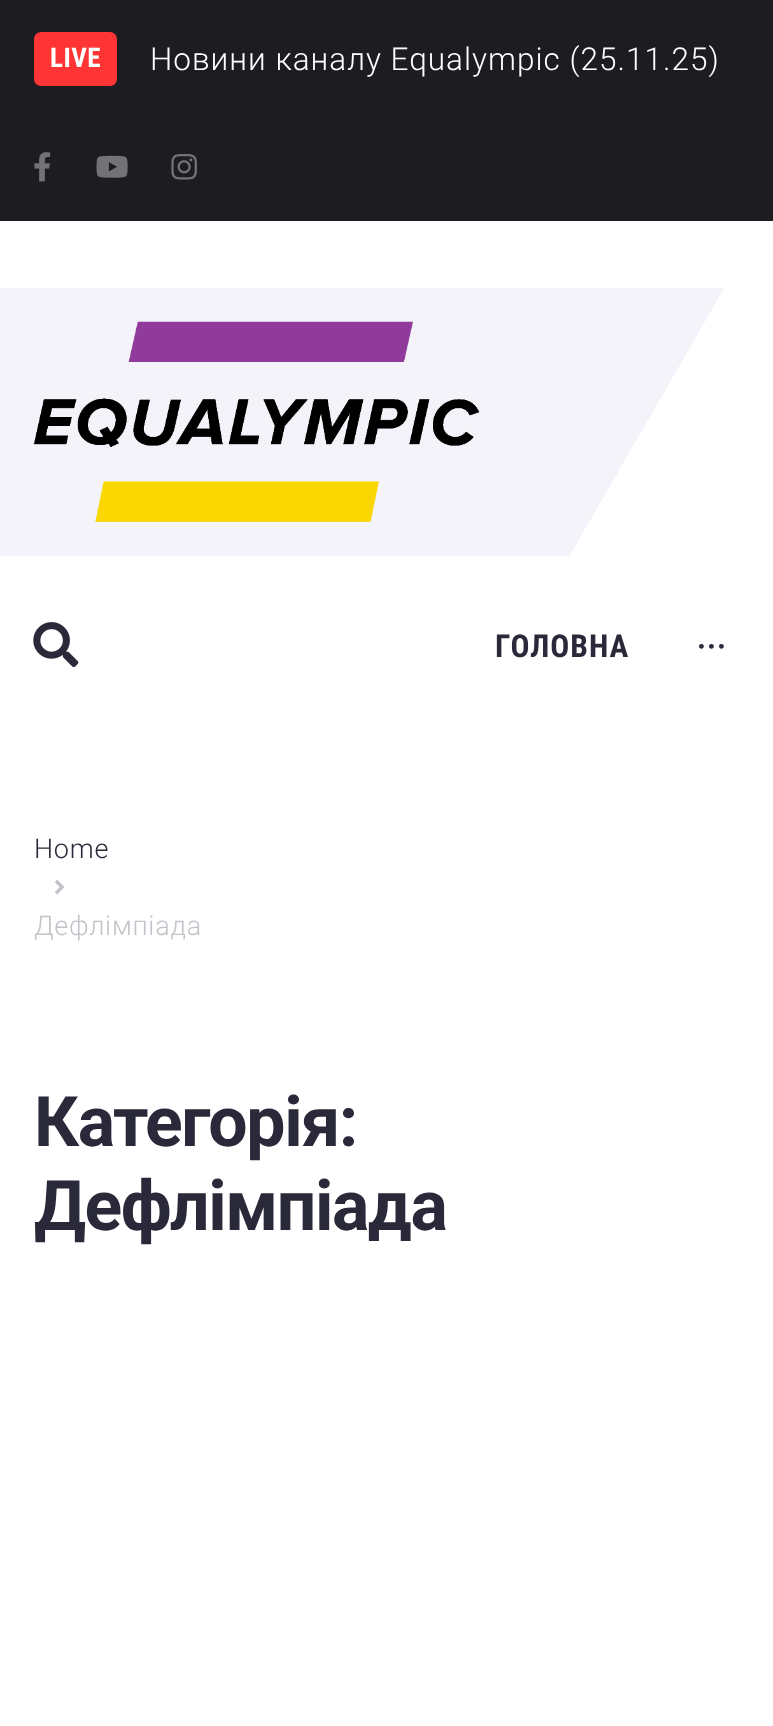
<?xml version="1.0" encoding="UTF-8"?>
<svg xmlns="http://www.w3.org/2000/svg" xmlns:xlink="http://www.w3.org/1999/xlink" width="773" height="1726">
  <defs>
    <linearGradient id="g1" gradientUnits="userSpaceOnUse" x1="39" y1="221" x2="735" y2="623"><stop offset="0.78" stop-color="#f3f3f9" /><stop offset="0.78" stop-color="#ffffff" /></linearGradient>
  </defs>
  <rect width="100%" height="100%" fill="#ffffff" />
  <rect width="773" height="221" fill="#1c1c21" />
  <rect x="34" y="32" width="83" height="54" rx="7" fill="#ff3535" />
  <image x="34" y="152" width="17" height="30" xlink:href="image1.png" />
  <image x="96" y="155" width="32" height="23" xlink:href="image2.png" />
  <image x="171" y="154" width="26" height="26" xlink:href="image3.png" />
  <rect y="288" width="724" height="268" fill="url(#g1)" />
  <image x="33" y="321" width="447" height="201" xlink:href="image4.png" />
  <image x="33" y="622" width="46" height="46" xlink:href="image5.png" />
  <image x="55" y="880" width="9" height="14" xlink:href="image6.png" />
  <text x="50" y="67" style="font-family: Roboto Condensed; font-size: 27px; font-weight: bold; letter-spacing: 0.5px; fill: #ffffff">LIVE</text>
  <text x="150" y="70" style="font-family: Roboto; font-size: 31.5px; font-weight: 300; letter-spacing: 1px; fill: #ffffff">Новини каналу Equalympic (25.11.25)</text>
  <text x="495" y="657" style="font-family: Roboto Condensed; font-size: 31.5px; font-weight: bold; letter-spacing: 1px; fill: #29293a">ГОЛОВНА</text>
  <text x="697" y="657" style="font-family: Roboto Condensed; font-size: 31.5px; font-weight: bold; letter-spacing: 1px; fill: #29293a">···</text>
  <text x="34" y="858" style="font-family: Roboto; font-size: 27px; font-weight: 300; letter-spacing: 0.75px; fill: #29293a">Home</text>
  <text x="34" y="935" style="font-family: Roboto; font-size: 27px; font-weight: 300; letter-spacing: 0.75px; fill: #c3c3c9">Дефлімпіада</text>
  <text x="34" y="1146" style="font-family: Roboto; font-size: 69.75px; font-weight: bold; letter-spacing: -1.4px; fill: #29293a">Категорія:</text>
  <text x="34" y="1230" style="font-family: Roboto; font-size: 69.75px; font-weight: bold; letter-spacing: -1.4px; fill: #29293a">Дефлімпіада</text>
</svg>
